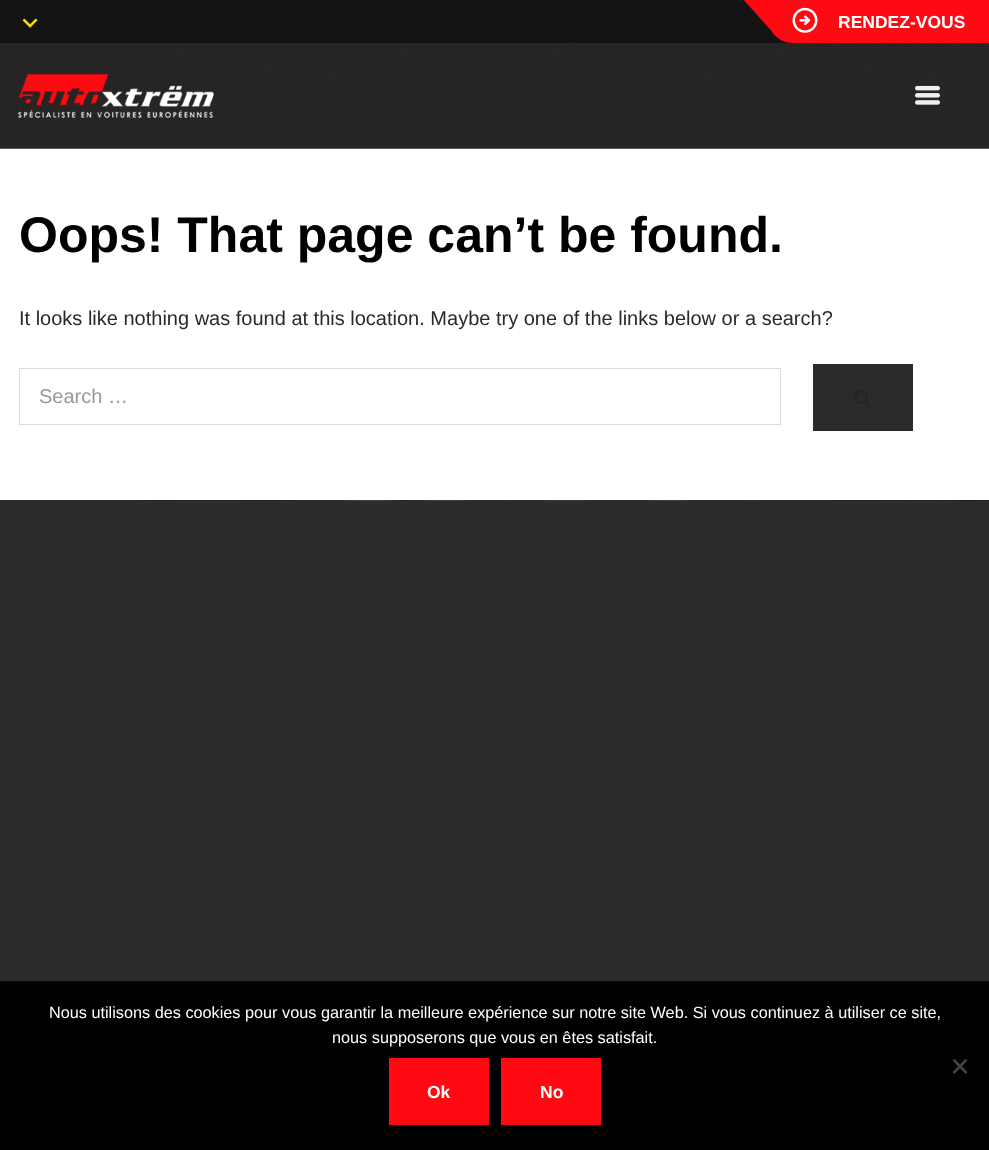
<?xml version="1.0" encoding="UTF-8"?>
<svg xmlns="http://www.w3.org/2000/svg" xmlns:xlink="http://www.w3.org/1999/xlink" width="989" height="1150">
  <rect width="100%" height="100%" fill="#ffffff" />
  <image x="0" y="500" width="989" height="1" xlink:href="image1.png" />
  <image x="0" y="43" width="989" height="106" xlink:href="image2.png" />
  <rect width="793" height="43" fill="#131313" />
  <image x="22" y="18" width="16" height="10" xlink:href="image3.png" />
  <path d="M 768 0 h 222 v 43 h -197 c -14 0 -25 -11 -25 -25 z" fill="#ff0913" />
  <path d="M 776 -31 v 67 l -60 -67 z" fill="#ff0913" />
  <image x="792" y="7" width="26" height="26" xlink:href="image4.png" />
  <image x="915" y="85" width="25" height="20" xlink:href="image5.png" />
  <image x="18" y="74" width="196" height="44" xlink:href="image6.png" />
  <rect x="19.5" y="368.5" width="761" height="56" fill="none" stroke="#dbdbdb" />
  <rect x="813" y="364" width="100" height="67" fill="#2b2b2b" />
  <image x="854" y="390" width="17" height="17" xlink:href="image7.png" />
  <rect y="501" width="989" height="480" fill="#2c2c2c" />
  <rect y="981" width="989" height="169" fill="#000000" />
  <path d="M 965.5 1058.5 l 2 2 l -13 13.5 l -2 -2 z" fill="#404040" />
  <path d="M 952.5 1060.5 l 2 -2 l 13 13.5 l -2 2 z" fill="#404040" />
  <rect x="389" y="1058" width="100" height="67" fill="#ff0913" />
  <rect x="501" y="1058" width="100" height="67" fill="#ff0913" />
  <text x="838" y="28" style="font-family: Liberation Sans; font-size: 17.5px; font-weight: bold; fill: #ffffff">RENDEZ-VOUS</text>
  <text x="19" y="252" style="font-family: Liberation Sans; font-size: 50px; font-weight: bold; fill: #000000">Oops! That page can’t be found.</text>
  <text x="19" y="325" style="font-family: Liberation Sans; font-size: 20px; fill: #292929">It looks like nothing was found at this location. Maybe try one of the links below or a search?</text>
  <text x="39" y="403" style="font-family: Liberation Sans; font-size: 20px; fill: #989898">Search …</text>
  <text x="49" y="1018" style="font-family: Liberation Sans; font-size: 16.25px; fill: #ffffff">Nous utilisons des cookies pour vous garantir la meilleure expérience sur notre site Web. Si vous continuez à utiliser ce site,</text>
  <text x="332" y="1043" style="font-family: Liberation Sans; font-size: 16.25px; fill: #ffffff">nous supposerons que vous en êtes satisfait.</text>
  <text x="427" y="1098" style="font-family: Liberation Sans; font-size: 17.5px; font-weight: bold; fill: #ffffff">Ok</text>
  <text x="540" y="1098" style="font-family: Liberation Sans; font-size: 17.5px; font-weight: bold; fill: #ffffff">No</text>
</svg>
